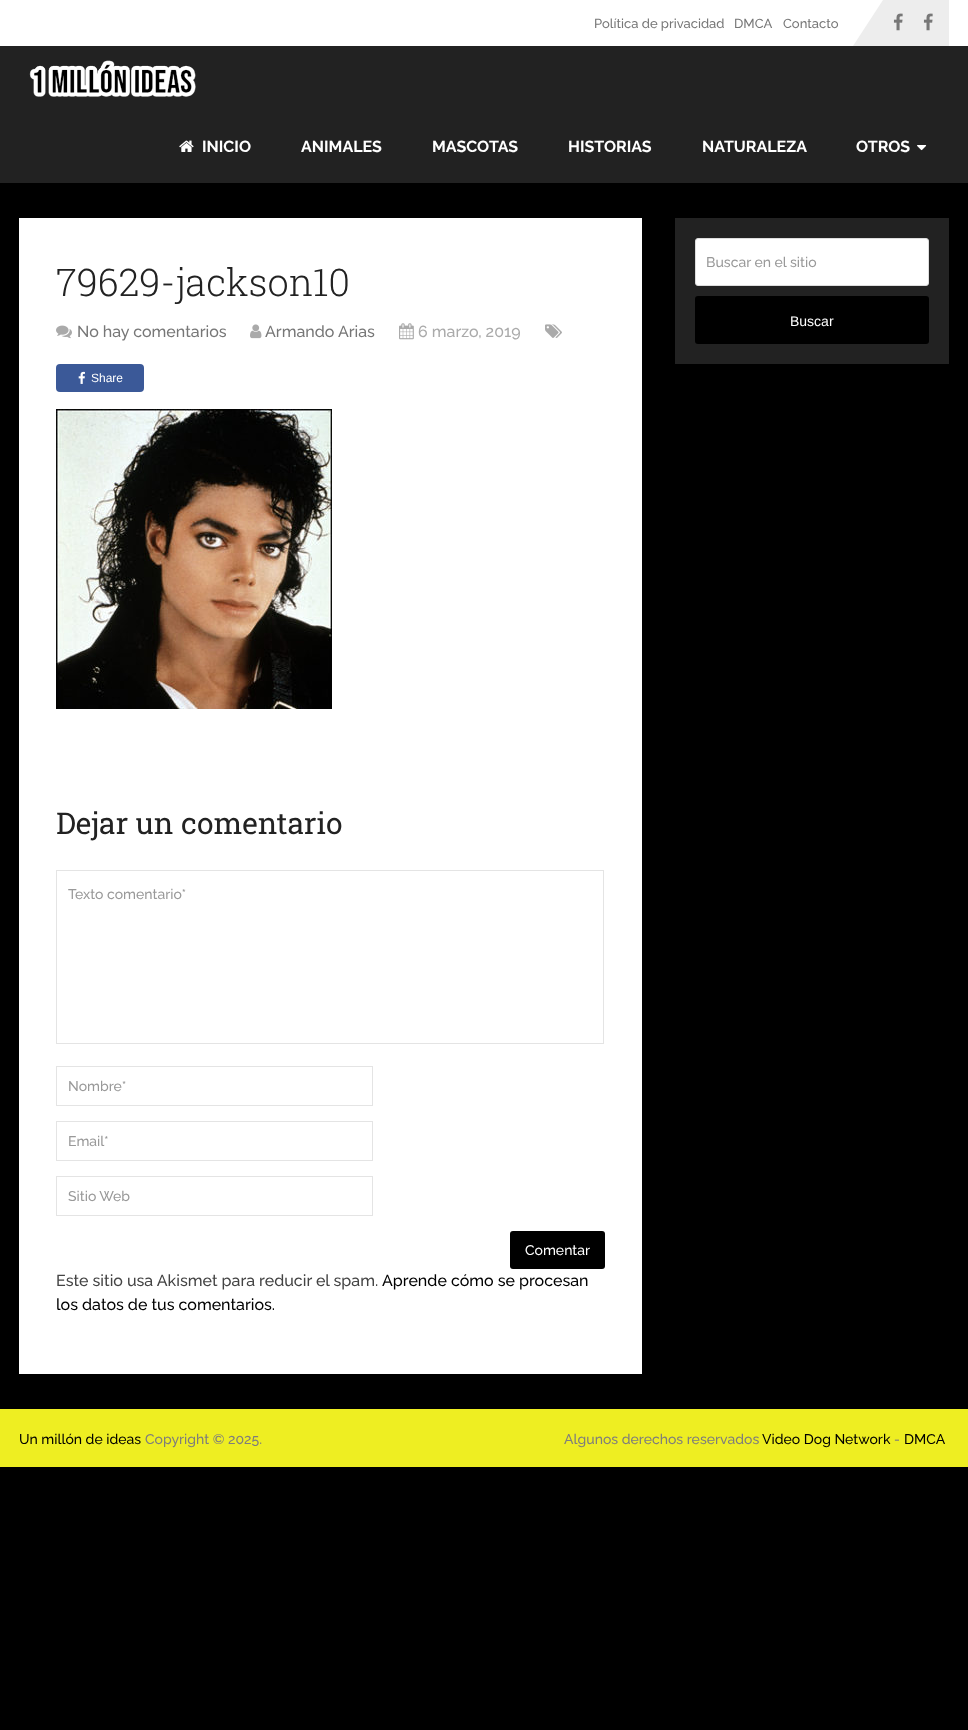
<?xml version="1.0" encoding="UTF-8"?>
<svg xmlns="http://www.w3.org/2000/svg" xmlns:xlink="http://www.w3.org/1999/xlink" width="968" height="1730">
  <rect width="100%" height="100%" fill="#000000" />
  <rect width="968" height="46" fill="#ffffff" />
  <rect x="883" width="66" height="46" fill="#ededed" />
  <path d="M 883 0 v 46 h -30 z" fill="#ededed" />
  <image x="893" y="13" width="10" height="18" xlink:href="image1.png" />
  <image x="923" y="13" width="10" height="18" xlink:href="image1.png" />
  <rect y="46" width="968" height="137" fill="#222222" />
  <image x="29" y="60" width="167" height="37" xlink:href="image2.png" />
  <image x="179" y="140" width="15" height="12" xlink:href="image3.png" />
  <image x="917" y="145" width="10" height="6" xlink:href="image4.png" />
  <rect x="19" y="218" width="623" height="1156" fill="#ffffff" />
  <image x="56" y="325" width="16" height="14" xlink:href="image5.png" />
  <image x="250" y="324" width="12" height="15" xlink:href="image6.png" />
  <image x="399" y="323" width="15" height="17" xlink:href="image7.png" />
  <image x="545" y="324" width="17" height="14" xlink:href="image8.png" />
  <rect x="56" y="364" width="88" height="28" rx="4" fill="#3b5998" />
  <image x="78" y="371" width="7" height="13" xlink:href="image9.png" />
  <image x="56" y="409" width="276" height="300" xlink:href="image10.png" />
  <rect x="56.5" y="870.5" width="547" height="173" fill="none" stroke="#e4e4e4" />
  <rect x="56.5" y="1066.5" width="316" height="39" fill="none" stroke="#e4e4e4" />
  <rect x="56.5" y="1121.5" width="316" height="39" fill="none" stroke="#e4e4e4" />
  <rect x="56.5" y="1176.5" width="316" height="39" fill="none" stroke="#e4e4e4" />
  <rect x="510" y="1231" width="95" height="38" rx="3" fill="#000000" />
  <rect x="675" y="218" width="274" height="146" fill="#222222" />
  <rect x="695.5" y="238.5" width="233" height="47" rx="2.5" fill="#ffffff" stroke="#dddddd" />
  <rect x="695" y="296" width="234" height="48" rx="3" fill="#000000" />
  <rect y="1409" width="968" height="58" fill="#eeee22" />
  <text x="594" y="28" style="font-family: Raleway; font-size: 13px; font-weight: 500; fill: #777777">Política de privacidad</text>
  <text x="734" y="28" style="font-family: Raleway; font-size: 13px; font-weight: 500; fill: #777777">DMCA</text>
  <text x="783" y="28" style="font-family: Raleway; font-size: 13px; font-weight: 500; fill: #777777">Contacto</text>
  <text x="202" y="152" style="font-family: Raleway; font-size: 16px; font-weight: bold; fill: #ffffff">INICIO</text>
  <text x="301" y="152" style="font-family: Raleway; font-size: 16px; font-weight: bold; fill: #ffffff">ANIMALES</text>
  <text x="432" y="152" style="font-family: Raleway; font-size: 16px; font-weight: bold; fill: #ffffff">MASCOTAS</text>
  <text x="568" y="152" style="font-family: Raleway; font-size: 16px; font-weight: bold; fill: #ffffff">HISTORIAS</text>
  <text x="702" y="152" style="font-family: Raleway; font-size: 16px; font-weight: bold; fill: #ffffff">NATURALEZA</text>
  <text x="856" y="152" style="font-family: Raleway; font-size: 16px; font-weight: bold; fill: #ffffff">OTROS</text>
  <text x="56" y="296" style="font-family: Roboto Slab; font-size: 38px; font-weight: 300; fill: #222222">79629-jackson10</text>
  <text x="77" y="337" style="font-family: Raleway; font-size: 16px; font-weight: 500; fill: #777777">No hay comentarios</text>
  <text x="265" y="337" style="font-family: Raleway; font-size: 16px; font-weight: 500; fill: #777777">Armando Arias</text>
  <text x="418" y="337" style="font-family: Raleway; font-size: 16px; font-weight: 500; fill: #aaaaaa">6 marzo, 2019</text>
  <text x="91" y="382" style="font-family: Liberation Sans; font-size: 12px; fill: #ffffff">Share</text>
  <text x="56" y="834" style="font-family: Roboto Slab; font-size: 30px; fill: #222222">Dejar un comentario</text>
  <text x="68" y="899" style="font-family: Raleway; font-size: 14px; font-weight: 500; fill: #999999">Texto comentario*</text>
  <text x="68" y="1091" style="font-family: Raleway; font-size: 14px; font-weight: 500; fill: #999999">Nombre*</text>
  <text x="68" y="1146" style="font-family: Raleway; font-size: 14px; font-weight: 500; fill: #999999">Email*</text>
  <text x="68" y="1201" style="font-family: Raleway; font-size: 14px; font-weight: 500; fill: #999999">Sitio Web</text>
  <text x="525" y="1255" style="font-family: Raleway; font-size: 14px; font-weight: 500; fill: #ffffff">Comentar</text>
  <text x="56" y="1286" style="font-family: Raleway; font-size: 16px; font-weight: 500; fill: #444444">Este sitio usa Akismet para reducir el spam.</text>
  <text x="382" y="1286" style="font-family: Raleway; font-size: 16px; font-weight: 500; fill: #000000">Aprende cómo se procesan</text>
  <text x="56" y="1310" style="font-family: Raleway; font-size: 16px; font-weight: 500; fill: #000000">los datos de tus comentarios.</text>
  <text x="706" y="267" style="font-family: Raleway; font-size: 14px; font-weight: 500; fill: #999999">Buscar en el sitio</text>
  <text x="790" y="326" style="font-family: Liberation Sans; font-size: 14px; fill: #ffffff">Buscar</text>
  <text x="19" y="1444" style="font-family: Raleway; font-size: 14px; font-weight: 500; fill: #000000">Un millón de ideas</text>
  <text x="145" y="1444" style="font-family: Raleway; font-size: 14px; font-weight: 500; fill: #7e7d7d">Copyright © 2025.</text>
  <text x="564" y="1444" style="font-family: Raleway; font-size: 14px; font-weight: 500; fill: #7e7d7d">Algunos derechos reservados</text>
  <text x="762" y="1444" style="font-family: Raleway; font-size: 14px; font-weight: 500; fill: #000000">Video Dog Network</text>
  <text x="894" y="1444" style="font-family: Raleway; font-size: 14px; font-weight: 500; fill: #7e7d7d">-</text>
  <text x="904" y="1444" style="font-family: Raleway; font-size: 14px; font-weight: 500; fill: #000000">DMCA</text>
</svg>
